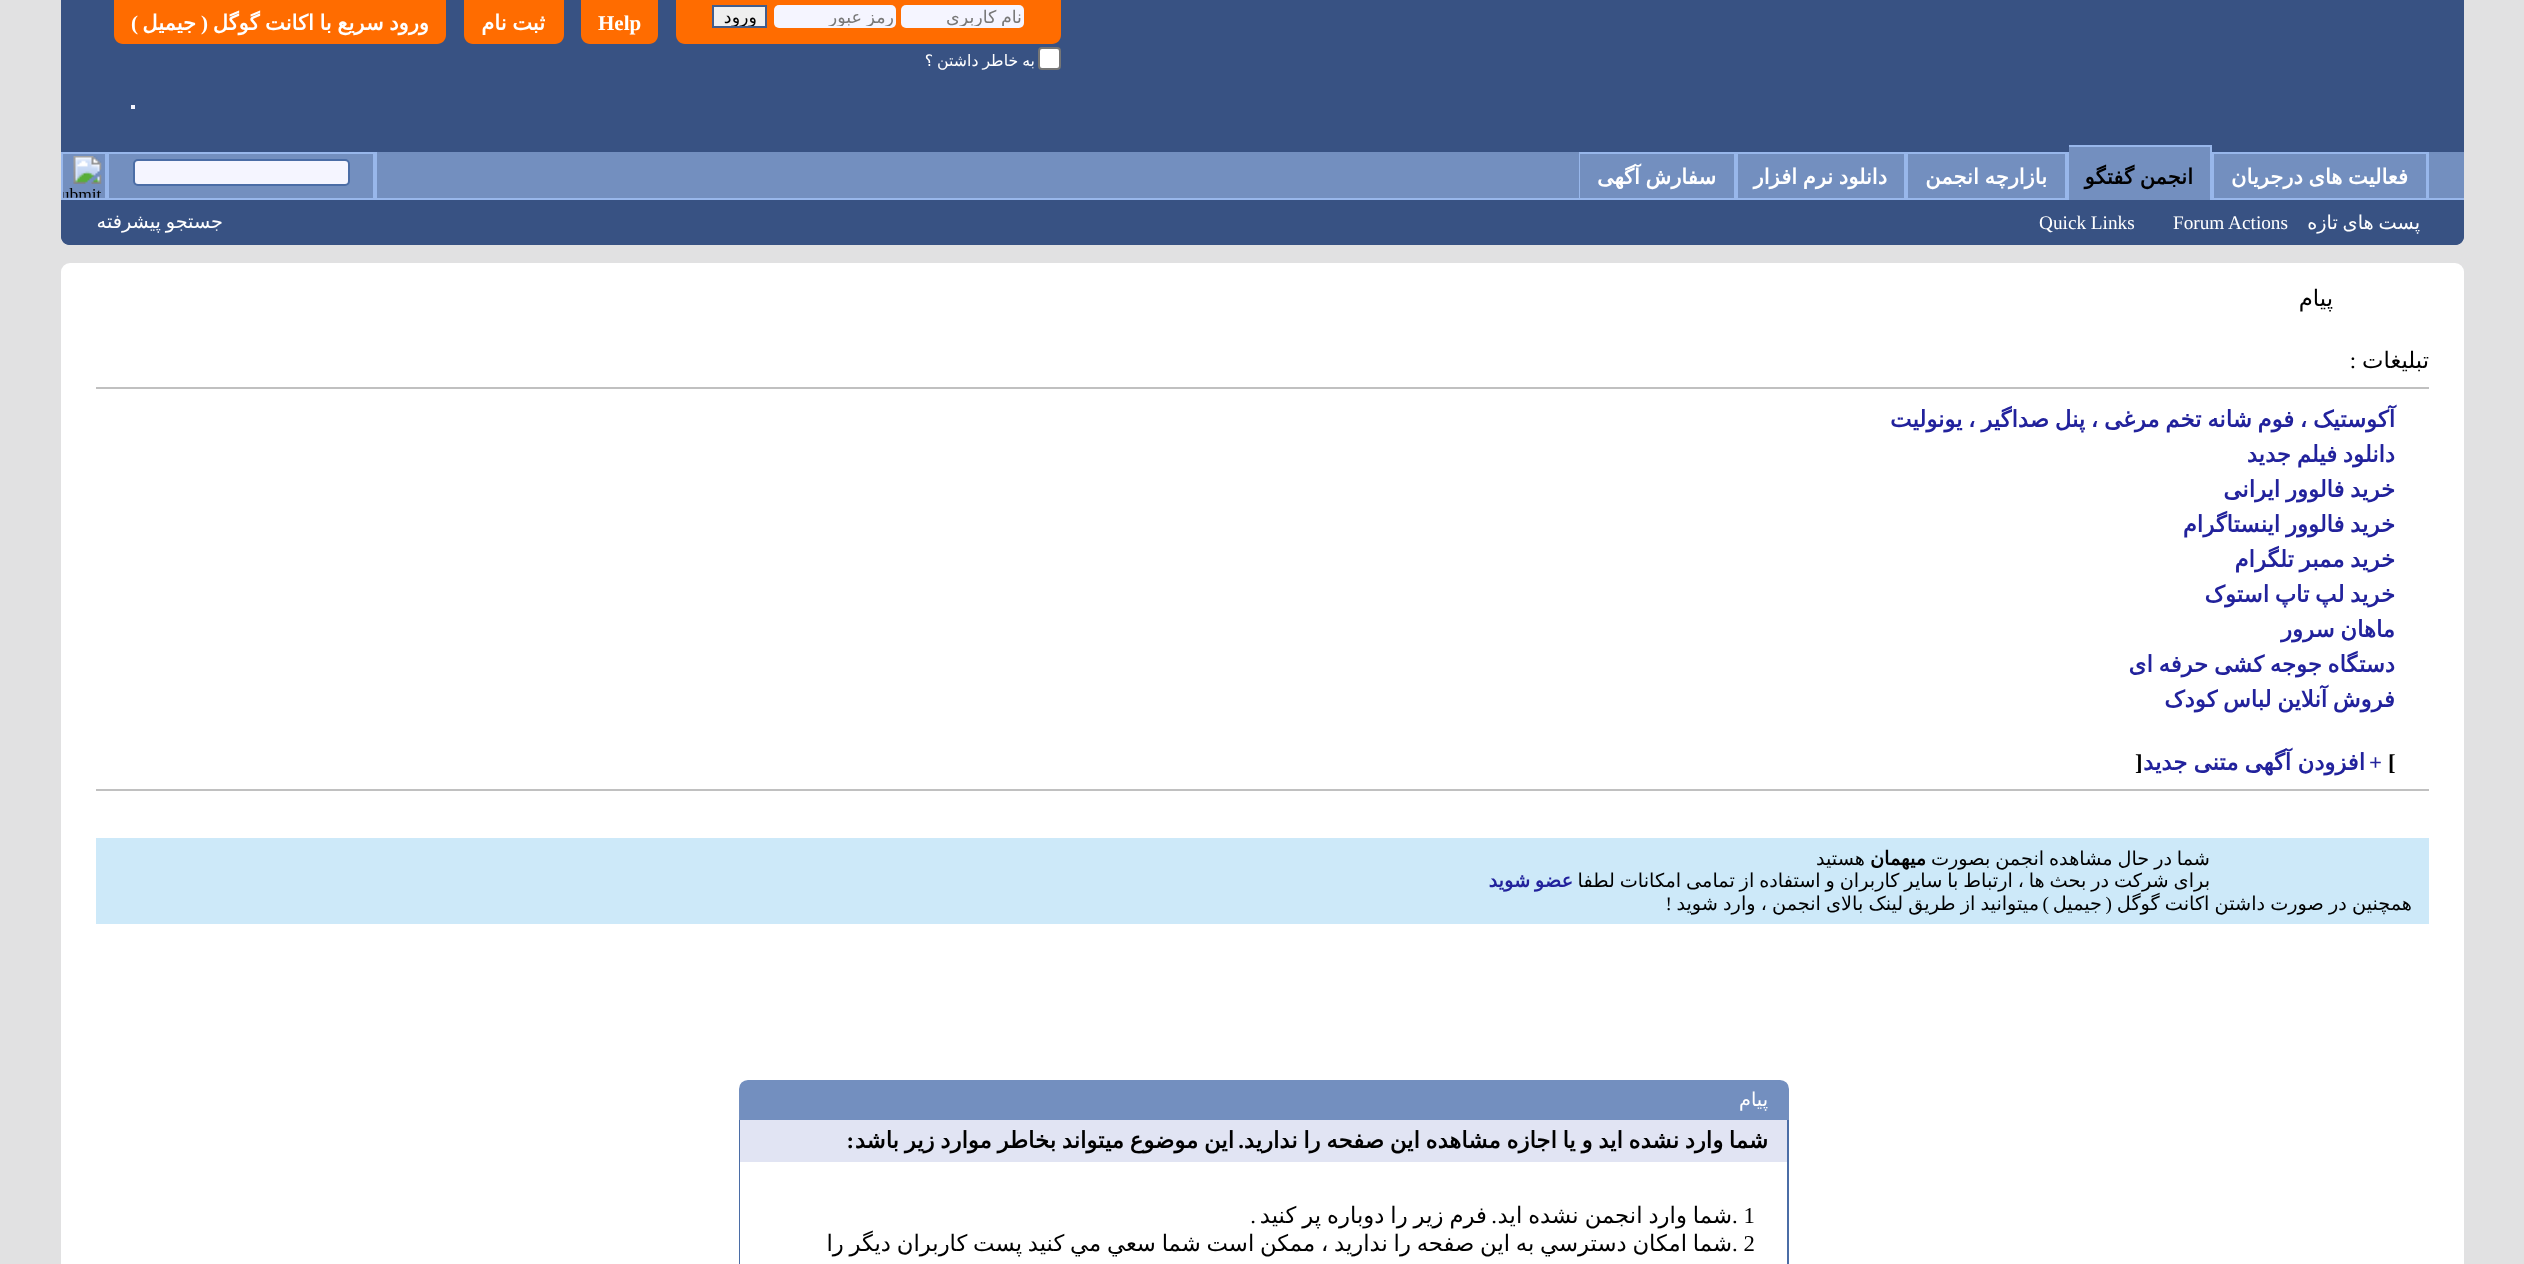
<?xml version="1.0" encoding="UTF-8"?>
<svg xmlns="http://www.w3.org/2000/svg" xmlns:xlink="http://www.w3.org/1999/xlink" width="2524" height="1264">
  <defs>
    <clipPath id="clip1"><rect x="903" y="7" width="119" height="19" /></clipPath>
    <clipPath id="clip2"><rect x="775" y="7" width="119" height="19" /></clipPath>
    <clipPath id="clip3"><rect x="714" y="7" width="51" height="19" /></clipPath>
  </defs>
  <rect width="100%" height="100%" fill="#e1e1e2" />
  <path d="M 61 0 h 2403 v 236 c 0 5 -4 9 -9 9 h -2385 c -5 0 -9 -4 -9 -9 z" fill="#385283" />
  <path d="M 676 0 h 385 v 35 c 0 5 -4 9 -9 9 h -367 c -5 0 -9 -4 -9 -9 z" fill="#ff6c00" />
  <rect x="901" y="5" width="123" height="23" rx="5" fill="#f5f5ff" />
  <rect x="774" y="5" width="122" height="23" rx="5" fill="#f5f5ff" />
  <rect x="713" y="6" width="53" height="21" fill="#efefef" stroke="#415d8d" stroke-width="2" />
  <rect x="1039" y="48" width="21" height="21" rx="3" fill="#ffffff" stroke="#767676" stroke-width="2" />
  <path d="M 581 0 h 77 v 35 c 0 5 -4 9 -9 9 h -59 c -5 0 -9 -4 -9 -9 z" fill="#ff6c00" />
  <path d="M 464 0 h 100 v 35 c 0 5 -4 9 -9 9 h -82 c -5 0 -9 -4 -9 -9 z" fill="#ff6c00" />
  <path d="M 114 0 h 332 v 35 c 0 5 -4 9 -9 9 h -314 c -5 0 -9 -4 -9 -9 z" fill="#ff6c00" />
  <rect x="131" y="105" width="4" height="4" fill="#f5f5ff" />
  <path d="M 61 152 h 2403 v 84 c 0 5 -4 9 -9 9 h -2385 c -5 0 -9 -4 -9 -9 z" fill="#385283" />
  <rect x="63" y="152" width="2401" height="46" fill="#738fbf" />
  <rect x="2428" y="152" width="1" height="48" fill="#98b7eb" />
  <rect x="2212" y="152" width="2" height="48" fill="#98b7eb" />
  <rect x="2214" y="152" width="213" height="2" fill="#98b7eb" />
  <rect x="2426" y="152" width="2" height="48" fill="#98b7eb" />
  <rect x="2067" y="152" width="2" height="46" fill="#98b7eb" />
  <rect x="1906" y="152" width="2" height="48" fill="#98b7eb" />
  <rect x="1908" y="152" width="159" height="2" fill="#98b7eb" />
  <rect x="2065" y="152" width="2" height="48" fill="#98b7eb" />
  <rect x="1736" y="152" width="2" height="48" fill="#98b7eb" />
  <rect x="1738" y="152" width="168" height="2" fill="#98b7eb" />
  <rect x="1904" y="152" width="2" height="48" fill="#98b7eb" />
  <rect x="1579" y="152" width="1" height="48" fill="#98b7eb" />
  <rect x="1580" y="152" width="156" height="2" fill="#98b7eb" />
  <rect x="1734" y="152" width="2" height="48" fill="#98b7eb" />
  <rect x="61" y="198" width="2403" height="2" fill="#98b7eb" />
  <rect x="2069" y="147" width="141" height="53" fill="#738fbf" />
  <rect x="2069" y="145" width="143" height="2" fill="#98b7eb" />
  <rect x="2210" y="145" width="2" height="55" fill="#98b7eb" />
  <rect x="375" y="152" width="2" height="46" fill="#98b7eb" />
  <rect x="109" y="152" width="266" height="2" fill="#98b7eb" />
  <rect x="373" y="152" width="2" height="46" fill="#98b7eb" />
  <rect x="134" y="160" width="215" height="25" rx="4" fill="#f5f5ff" stroke="#4b6da6" stroke-width="2" />
  <rect x="107" y="152" width="2" height="46" fill="#98b7eb" />
  <rect x="61" y="152" width="2" height="46" fill="#98b7eb" />
  <rect x="63" y="152" width="44" height="2" fill="#98b7eb" />
  <rect x="105" y="152" width="2" height="46" fill="#98b7eb" />
  <image x="63" y="156" width="39" height="42" xlink:href="image1.png" />
  <rect x="61" y="263" width="2403" height="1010" rx="9" fill="#ffffff" />
  <rect x="96" y="387" width="2333" height="2" fill="#c0c0c0" />
  <rect x="96" y="789" width="2333" height="2" fill="#c0c0c0" />
  <rect x="96" y="838" width="2333" height="86" fill="#cde9f9" />
  <path d="M 748 1081 h 1032 c 4.5 0 8 3.5 8 8 v 30 h -1048 v -30 c 0 -4.5 3.5 -8 8 -8 z" fill="#738fbf" stroke="#738fbf" stroke-width="2" />
  <rect x="1787" y="1120" width="2" height="144" fill="#4b6da6" />
  <rect x="739" y="1120" width="1" height="144" fill="#4b6da6" />
  <rect x="740" y="1120" width="1047" height="42" fill="#e1e4f3" />
  <g clip-path="url(#clip1)">
    <text x="1022" y="23" word-spacing="-1" style="font-family: DejaVu Sans; font-size: 17.5px; direction: rtl; fill: #777777">نام کاربری</text>
  </g>
  <g clip-path="url(#clip2)">
    <text x="894" y="23" word-spacing="-1" style="font-family: DejaVu Sans; font-size: 17.5px; direction: rtl; fill: #777777">رمز عبور</text>
  </g>
  <g clip-path="url(#clip3)">
    <text x="757" y="23" style="font-family: DejaVu Sans; font-size: 17.5px; direction: rtl; fill: #000000">ورود</text>
  </g>
  <text x="1035" y="66" word-spacing="-1" style="font-family: DejaVu Sans; font-size: 15.75px; direction: rtl; fill: #ffffff">به خاطر داشتن ؟</text>
  <text x="598" y="30" style="font-family: Liberation Serif; font-size: 21px; font-weight: bold; fill: #ffffff">Help</text>
  <text x="545" y="30" word-spacing="-1" style="font-family: DejaVu Sans; font-size: 21px; font-weight: bold; direction: rtl; fill: #ffffff">ثبت نام</text>
  <text x="429" y="30" word-spacing="-1" style="font-family: DejaVu Sans; font-size: 21px; font-weight: bold; direction: rtl; fill: #ffffff">ورود سریع با اکانت گوگل</text>
  <text x="208" y="30" style="font-family: Liberation Serif; font-size: 21px; font-weight: bold; direction: rtl; fill: #ffffff">(</text>
  <text x="196" y="30" style="font-family: DejaVu Sans; font-size: 21px; font-weight: bold; direction: rtl; fill: #ffffff">جیمیل</text>
  <text x="138" y="30" style="font-family: Liberation Serif; font-size: 21px; font-weight: bold; direction: rtl; fill: #ffffff">)</text>
  <text x="2408" y="184" word-spacing="-1" style="font-family: DejaVu Sans; font-size: 21px; font-weight: bold; direction: rtl; fill: #ffffff">فعالیت های درجریان</text>
  <text x="2193" y="184" word-spacing="-1" style="font-family: DejaVu Sans; font-size: 21px; font-weight: bold; direction: rtl; fill: #000000">انجمن گفتگو</text>
  <text x="2047" y="184" word-spacing="-1" style="font-family: DejaVu Sans; font-size: 21px; font-weight: bold; direction: rtl; fill: #ffffff">بازارچه انجمن</text>
  <text x="1887" y="184" word-spacing="-1" style="font-family: DejaVu Sans; font-size: 21px; font-weight: bold; direction: rtl; fill: #ffffff">دانلود نرم افزار</text>
  <text x="1716" y="184" word-spacing="-1" style="font-family: DejaVu Sans; font-size: 21px; font-weight: bold; direction: rtl; fill: #ffffff">سفارش آگهی</text>
  <text x="2420" y="229" word-spacing="-1.25" style="font-family: DejaVu Sans; font-size: 19.25px; direction: rtl; fill: #ffffff">پست های تازه</text>
  <text x="2173" y="229" style="font-family: Liberation Serif; font-size: 19.25px; fill: #ffffff">Forum Actions</text>
  <text x="2039" y="229" style="font-family: Liberation Serif; font-size: 19.25px; fill: #ffffff">Quick Links</text>
  <text x="223" y="228" word-spacing="-1.25" style="font-family: DejaVu Sans; font-size: 19.25px; direction: rtl; fill: #ffffff">جستجو پيشرفته</text>
  <text x="2333" y="306" style="font-family: DejaVu Sans; font-size: 22.75px; direction: rtl; fill: #000000">پیام</text>
  <text x="2429" y="368" style="font-family: DejaVu Sans; font-size: 22.75px; direction: rtl; fill: #000000">تبلیغات</text>
  <text x="2356" y="368" style="font-family: Liberation Serif; font-size: 22.75px; direction: rtl; fill: #000000">:</text>
  <text x="2395" y="427" word-spacing="-1.5" style="font-family: DejaVu Sans; font-size: 22.75px; font-weight: bold; direction: rtl; fill: #22229c">آکوستیک ، فوم شانه تخم مرغی ، پنل صداگیر ، یونولیت</text>
  <text x="2395" y="462" word-spacing="-1.5" style="font-family: DejaVu Sans; font-size: 22.75px; font-weight: bold; direction: rtl; fill: #22229c">دانلود فیلم جدید</text>
  <text x="2395" y="497" word-spacing="-1.5" style="font-family: DejaVu Sans; font-size: 22.75px; font-weight: bold; direction: rtl; fill: #22229c">خرید فالوور ایرانی</text>
  <text x="2395" y="532" word-spacing="-1.5" style="font-family: DejaVu Sans; font-size: 22.75px; font-weight: bold; direction: rtl; fill: #22229c">خرید فالوور اینستاگرام</text>
  <text x="2395" y="567" word-spacing="-1.5" style="font-family: DejaVu Sans; font-size: 22.75px; font-weight: bold; direction: rtl; fill: #22229c">خرید ممبر تلگرام</text>
  <text x="2395" y="602" word-spacing="-1.5" style="font-family: DejaVu Sans; font-size: 22.75px; font-weight: bold; direction: rtl; fill: #22229c">خرید لپ تاپ استوک</text>
  <text x="2395" y="637" word-spacing="-1.5" style="font-family: DejaVu Sans; font-size: 22.75px; font-weight: bold; direction: rtl; fill: #22229c">ماهان سرور</text>
  <text x="2395" y="672" word-spacing="-1.5" style="font-family: DejaVu Sans; font-size: 22.75px; font-weight: bold; direction: rtl; fill: #22229c">دستگاه جوجه کشی حرفه ای</text>
  <text x="2395" y="707" word-spacing="-1.5" style="font-family: DejaVu Sans; font-size: 22.75px; font-weight: bold; direction: rtl; fill: #22229c">فروش آنلاین لباس کودک</text>
  <text x="2388" y="770" style="font-family: Liberation Serif; font-size: 22.75px; font-weight: bold; fill: #000000">[</text>
  <text x="2382" y="770" style="font-family: Liberation Serif; font-size: 22.75px; font-weight: bold; direction: rtl; fill: #22229c">+</text>
  <text x="2365" y="770" word-spacing="-1" style="font-family: DejaVu Sans; font-size: 22.75px; font-weight: bold; direction: rtl; fill: #22229c">افزودن آگهی متنی جدید</text>
  <text x="2135" y="770" style="font-family: Liberation Serif; font-size: 22.75px; font-weight: bold; fill: #000000">]</text>
  <text x="2210" y="865" word-spacing="-1.25" style="font-family: DejaVu Sans; font-size: 19.25px; direction: rtl; fill: #000000">شما در حال مشاهده انجمن بصورت</text>
  <text x="1926" y="865" style="font-family: DejaVu Sans; font-size: 19.25px; font-weight: bold; direction: rtl; fill: #000000">میهمان</text>
  <text x="1865" y="865" style="font-family: DejaVu Sans; font-size: 19.25px; direction: rtl; fill: #000000">هستید</text>
  <text x="2210" y="887" word-spacing="-1.25" style="font-family: DejaVu Sans; font-size: 19.25px; direction: rtl; fill: #000000">برای شرکت در بحث ها ، ارتباط با سایر کاربران و استفاده از تمامی امکانات لطفا</text>
  <text x="1573" y="887" word-spacing="-1.25" style="font-family: DejaVu Sans; font-size: 19.25px; font-weight: bold; direction: rtl; fill: #22229c">عضو شوید</text>
  <text x="2412" y="910" word-spacing="-1" style="font-family: DejaVu Sans; font-size: 19.25px; direction: rtl; fill: #000000">همچنین در صورت داشتن اکانت گوگل</text>
  <text x="2112" y="910" style="font-family: Liberation Serif; font-size: 19.25px; direction: rtl; fill: #000000">(</text>
  <text x="2102" y="910" style="font-family: DejaVu Sans; font-size: 19.25px; direction: rtl; fill: #000000">جیمیل</text>
  <text x="2049" y="910" style="font-family: Liberation Serif; font-size: 19.25px; direction: rtl; fill: #000000">)</text>
  <text x="2039" y="910" word-spacing="-1" style="font-family: DejaVu Sans; font-size: 19.25px; direction: rtl; fill: #000000">میتوانید از طریق لینک بالای انجمن ، وارد شوید</text>
  <text x="1672" y="910" style="font-family: Liberation Serif; font-size: 19.25px; direction: rtl; fill: #000000">!</text>
  <text x="1768" y="1106" style="font-family: DejaVu Sans; font-size: 19.25px; direction: rtl; fill: #ffffff">پیام</text>
  <text x="1768" y="1148" word-spacing="-1.5" style="font-family: DejaVu Sans; font-size: 22.75px; font-weight: bold; direction: rtl; fill: #000000">شما وارد نشده ايد و يا اجازه مشاهده اين صفحه را نداريد</text>
  <text x="1244" y="1148" style="font-family: Liberation Serif; font-size: 22.75px; font-weight: bold; direction: rtl; fill: #000000">.</text>
  <text x="1234" y="1148" word-spacing="-1.5" style="font-family: DejaVu Sans; font-size: 22.75px; font-weight: bold; direction: rtl; fill: #000000">اين موضوع ميتواند بخاطر موارد زير باشد</text>
  <text x="854" y="1148" style="font-family: Liberation Serif; font-size: 22.75px; font-weight: bold; direction: rtl; fill: #000000">:</text>
  <text x="1732" y="1223" style="font-family: Liberation Serif; font-size: 22.75px; fill: #000000">. 1</text>
  <text x="1732" y="1223" word-spacing="-1.25" style="font-family: DejaVu Sans; font-size: 22.75px; direction: rtl; fill: #000000">شما وارد انجمن نشده ايد</text>
  <text x="1497" y="1223" style="font-family: Liberation Serif; font-size: 22.75px; direction: rtl; fill: #000000">.</text>
  <text x="1487" y="1223" word-spacing="-1.25" style="font-family: DejaVu Sans; font-size: 22.75px; direction: rtl; fill: #000000">فرم زير را دوباره پر کنيد</text>
  <text x="1256" y="1223" style="font-family: Liberation Serif; font-size: 22.75px; direction: rtl; fill: #000000">.</text>
  <text x="1732" y="1251" style="font-family: Liberation Serif; font-size: 22.75px; fill: #000000">. 2</text>
  <text x="1732" y="1251" word-spacing="-1.5" style="font-family: DejaVu Sans; font-size: 22.75px; direction: rtl; fill: #000000">شما امکان دسترسي به اين صفحه را نداريد ، ممکن است شما سعي مي کنيد پست کاربران ديگر را</text>
</svg>
